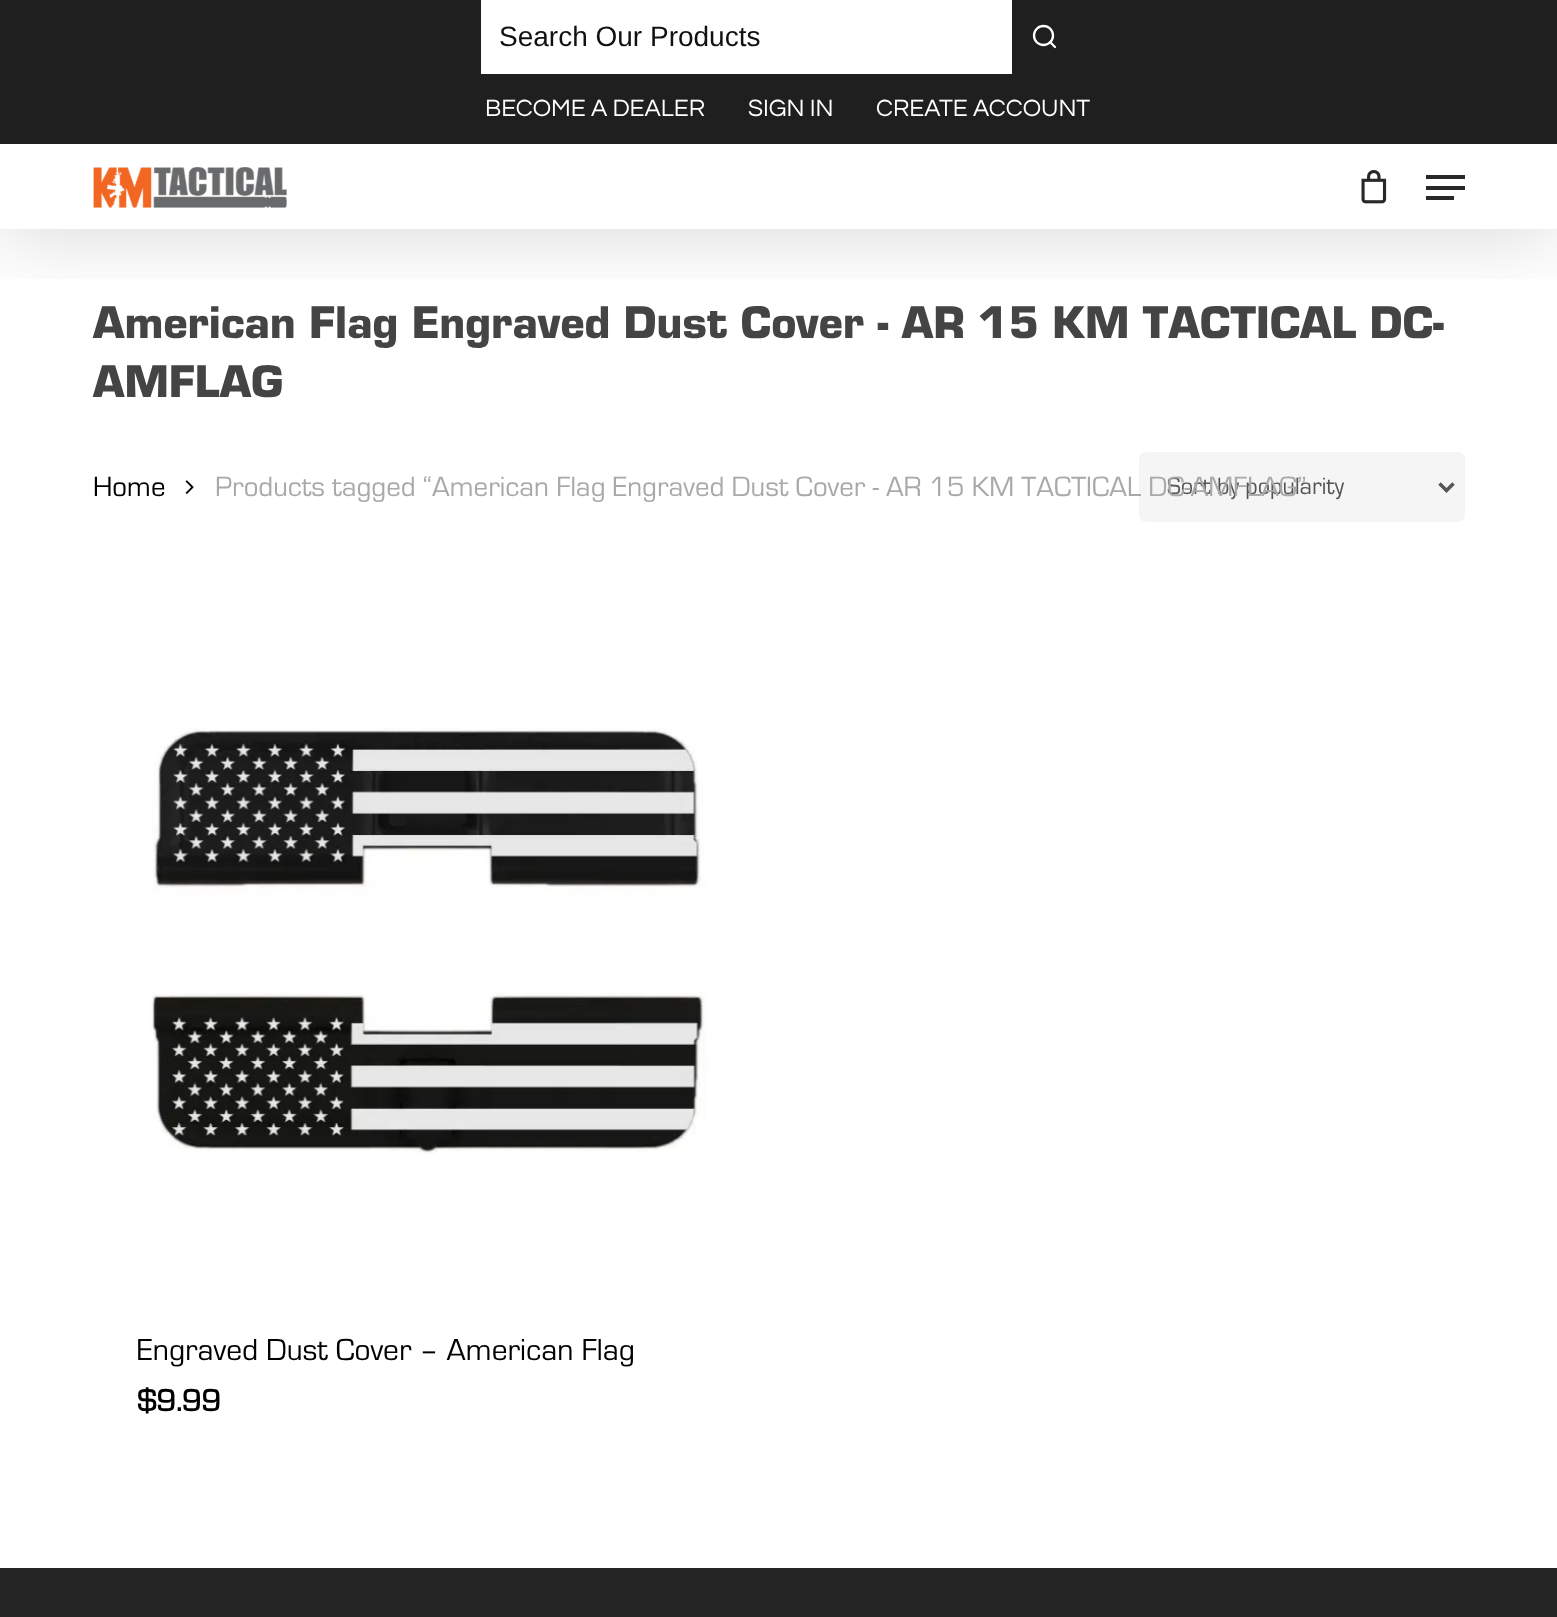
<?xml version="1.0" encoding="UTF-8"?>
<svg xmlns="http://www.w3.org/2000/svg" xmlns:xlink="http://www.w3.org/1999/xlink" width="1557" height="1617">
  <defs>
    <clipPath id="clip1"><rect x="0" y="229" width="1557" height="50" /></clipPath>
  </defs>
  <rect width="100%" height="100%" fill="#ffffff" />
  <g clip-path="url(#clip1)">
    <rect y="5" width="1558" height="230" fill="#000000" fill-opacity="0.15" filter="blur(39.5px)" />
  </g>
  <rect width="1557" height="144" fill="#1f1f1f" />
  <rect x="481" width="531" height="74" fill="#ffffff" />
  <circle cx="1043.5" cy="35.5" r="9.5" fill="none" stroke="#ffffff" stroke-width="2.3" />
  <path d="M 1055 47 l -5 -5" fill="none" stroke="#ffffff" stroke-width="2.3" stroke-linecap="round" stroke-linejoin="round" />
  <image x="93" y="167" width="195" height="41" xlink:href="image1.png" />
  <image x="1361" y="170" width="26" height="34" xlink:href="image2.png" />
  <rect x="1426" y="175" width="39" height="4" fill="#282828" />
  <rect x="1426" y="196" width="28" height="4" fill="#282828" />
  <rect x="1426" y="186" width="39" height="4" fill="#282828" />
  <image x="185" y="480" width="9" height="14" xlink:href="image3.png" />
  <rect x="1139" y="452" width="326" height="70" rx="7" fill="#f5f5f5" />
  <path d="M 1439.5 483.5 l 7 7 l 7 -7" fill="none" stroke="#555555" stroke-width="3.5" />
  <image x="150" y="728" width="559" height="426" xlink:href="image4.png" />
  <rect y="1568" width="1557" height="49" fill="#252525" />
  <text x="499" y="46" style="font-family: Liberation Sans; font-size: 28px; fill: #111111">Search Our Products</text>
  <text x="485" y="116" style="font-family: Questrial; font-size: 24.5px; fill: #ffffff">BECOME A DEALER</text>
  <text x="748" y="116" style="font-family: Questrial; font-size: 24.5px; fill: #ffffff">SIGN IN</text>
  <text x="876" y="116" style="font-family: Questrial; font-size: 24.5px; fill: #ffffff">CREATE ACCOUNT</text>
  <text x="93" y="338" style="font-family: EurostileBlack; font-size: 47.6px; font-weight: 900; fill: #444444">American Flag Engraved Dust Cover - AR 15 KM TACTICAL DC-</text>
  <text x="93" y="397" style="font-family: EurostileBlack; font-size: 47.6px; font-weight: 900; fill: #444444">AMFLAG</text>
  <text x="93" y="496" style="font-family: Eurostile; font-size: 29px; fill: #000000">Home</text>
  <text x="1167" y="494" style="font-family: Eurostile; font-size: 24.5px; fill: #555555">Sort by popularity</text>
  <text x="215" y="496" style="font-family: Eurostile; font-size: 29px; fill: #a9a9a9">Products tagged “American Flag Engraved Dust Cover - AR 15 KM TACTICAL DC-AMFLAG”</text>
  <text x="137" y="1360" style="font-family: Eurostile; font-size: 31.5px; fill: #000000">Engraved Dust Cover – American Flag</text>
  <text x="137" y="1411" style="font-family: Eurostile; font-size: 31.5px; font-weight: bold; fill: #000000">$9.99</text>
</svg>
